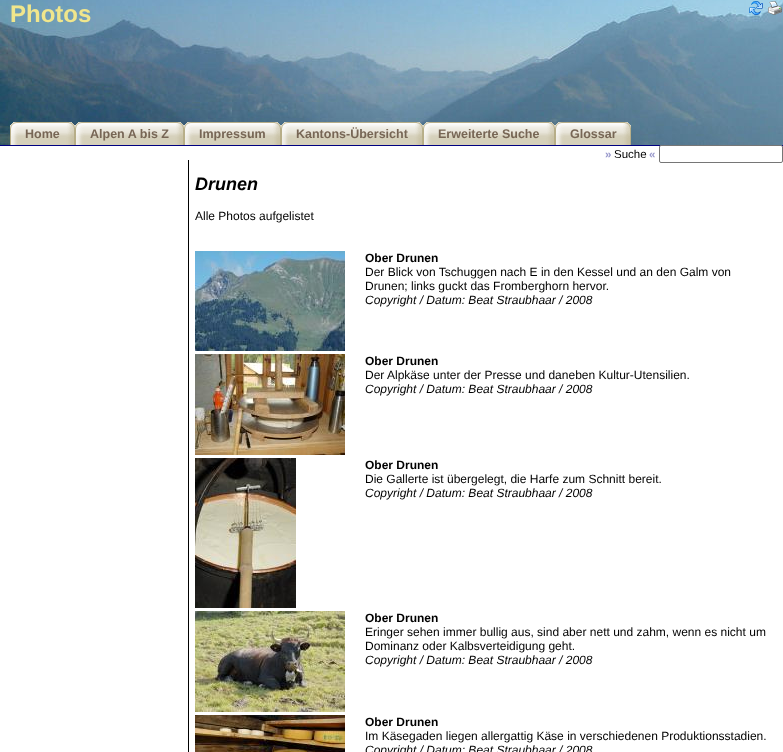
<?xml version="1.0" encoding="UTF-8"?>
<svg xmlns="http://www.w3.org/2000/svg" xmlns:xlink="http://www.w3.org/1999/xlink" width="783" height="752">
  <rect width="100%" height="100%" fill="#ffffff" />
  <image x="0" y="0" width="783" height="145" xlink:href="image1.png" />
  <rect y="145" width="783" height="1" fill="#000080" />
  <image x="749" y="1" width="14" height="14" xlink:href="image2.png" />
  <image x="768" y="1" width="14" height="14" xlink:href="image3.png" />
  <image x="10" y="122" width="9" height="23" xlink:href="image4.png" />
  <image x="19" y="122" width="56" height="23" xlink:href="image5.png" />
  <image x="75" y="122" width="9" height="23" xlink:href="image6.png" />
  <image x="84" y="122" width="100" height="23" xlink:href="image7.png" />
  <image x="184" y="122" width="9" height="23" xlink:href="image8.png" />
  <image x="193" y="122" width="88" height="23" xlink:href="image9.png" />
  <image x="281" y="122" width="9" height="23" xlink:href="image10.png" />
  <image x="290" y="122" width="133" height="23" xlink:href="image11.png" />
  <image x="423" y="122" width="9" height="23" xlink:href="image12.png" />
  <image x="432" y="122" width="123" height="23" xlink:href="image13.png" />
  <image x="555" y="122" width="9" height="23" xlink:href="image14.png" />
  <image x="564" y="122" width="67" height="23" xlink:href="image15.png" />
  <rect x="659.5" y="145.5" width="123" height="17" rx="1.5" fill="#ffffff" stroke="#767676" />
  <rect x="188" y="160" width="1" height="592" fill="#000000" />
  <image x="195" y="251" width="150" height="100" xlink:href="image16.png" />
  <image x="195" y="354" width="150" height="101" xlink:href="image17.png" />
  <image x="195" y="458" width="101" height="150" xlink:href="image18.png" />
  <image x="195" y="611" width="150" height="101" xlink:href="image19.png" />
  <image x="195" y="715" width="150" height="37" xlink:href="image20.png" />
  <text x="10" y="22" style="font-family: Liberation Sans; font-size: 24px; font-weight: bold; fill: #f0e68c">Photos</text>
  <text x="25" y="138" style="font-family: Liberation Sans; font-size: 12.5px; font-weight: bold; fill: #776655">Home</text>
  <text x="90" y="138" style="font-family: Liberation Sans; font-size: 12.5px; font-weight: bold; fill: #776655">Alpen A bis Z</text>
  <text x="199" y="138" style="font-family: Liberation Sans; font-size: 12.5px; font-weight: bold; fill: #776655">Impressum</text>
  <text x="296" y="138" style="font-family: Liberation Sans; font-size: 12.5px; font-weight: bold; fill: #776655">Kantons-Übersicht</text>
  <text x="438" y="138" style="font-family: Liberation Sans; font-size: 12.5px; font-weight: bold; fill: #776655">Erweiterte Suche</text>
  <text x="570" y="138" style="font-family: Liberation Sans; font-size: 12.5px; font-weight: bold; fill: #776655">Glossar</text>
  <text x="605" y="158" style="font-family: Liberation Sans; font-size: 11.5px; font-weight: bold; fill: #9999cc">»</text>
  <text x="614" y="158" style="font-family: Liberation Sans; font-size: 11.5px; fill: #000000">Suche</text>
  <text x="649" y="158" style="font-family: Liberation Sans; font-size: 11.5px; font-weight: bold; fill: #9999cc">«</text>
  <text x="195" y="190" style="font-family: Liberation Sans; font-size: 18px; font-weight: bold; font-style: italic; fill: #000000">Drunen</text>
  <text x="195" y="220" style="font-family: Liberation Sans; font-size: 12px; fill: #000000">Alle Photos aufgelistet</text>
  <text x="365" y="262" style="font-family: Liberation Sans; font-size: 12px; font-weight: bold; fill: #000000">Ober Drunen</text>
  <text x="365" y="276" style="font-family: Liberation Sans; font-size: 12px; fill: #000000">Der Blick von Tschuggen nach E in den Kessel und an den Galm von</text>
  <text x="365" y="290" style="font-family: Liberation Sans; font-size: 12px; fill: #000000">Drunen; links guckt das Fromberghorn hervor.</text>
  <text x="365" y="304" style="font-family: Liberation Sans; font-size: 12px; font-style: italic; fill: #000000">Copyright / Datum: Beat Straubhaar / 2008</text>
  <text x="365" y="365" style="font-family: Liberation Sans; font-size: 12px; font-weight: bold; fill: #000000">Ober Drunen</text>
  <text x="365" y="379" style="font-family: Liberation Sans; font-size: 12px; fill: #000000">Der Alpkäse unter der Presse und daneben Kultur-Utensilien.</text>
  <text x="365" y="393" style="font-family: Liberation Sans; font-size: 12px; font-style: italic; fill: #000000">Copyright / Datum: Beat Straubhaar / 2008</text>
  <text x="365" y="469" style="font-family: Liberation Sans; font-size: 12px; font-weight: bold; fill: #000000">Ober Drunen</text>
  <text x="365" y="483" style="font-family: Liberation Sans; font-size: 12px; fill: #000000">Die Gallerte ist übergelegt, die Harfe zum Schnitt bereit.</text>
  <text x="365" y="497" style="font-family: Liberation Sans; font-size: 12px; font-style: italic; fill: #000000">Copyright / Datum: Beat Straubhaar / 2008</text>
  <text x="365" y="622" style="font-family: Liberation Sans; font-size: 12px; font-weight: bold; fill: #000000">Ober Drunen</text>
  <text x="365" y="636" style="font-family: Liberation Sans; font-size: 12px; fill: #000000">Eringer sehen immer bullig aus, sind aber nett und zahm, wenn es nicht um</text>
  <text x="365" y="650" style="font-family: Liberation Sans; font-size: 12px; fill: #000000">Dominanz oder Kalbsverteidigung geht.</text>
  <text x="365" y="664" style="font-family: Liberation Sans; font-size: 12px; font-style: italic; fill: #000000">Copyright / Datum: Beat Straubhaar / 2008</text>
  <text x="365" y="726" style="font-family: Liberation Sans; font-size: 12px; font-weight: bold; fill: #000000">Ober Drunen</text>
  <text x="365" y="740" style="font-family: Liberation Sans; font-size: 12px; fill: #000000">Im Käsegaden liegen allergattig Käse in verschiedenen Produktionsstadien.</text>
  <text x="365" y="754" style="font-family: Liberation Sans; font-size: 12px; font-style: italic; fill: #000000">Copyright / Datum: Beat Straubhaar / 2008</text>
</svg>
